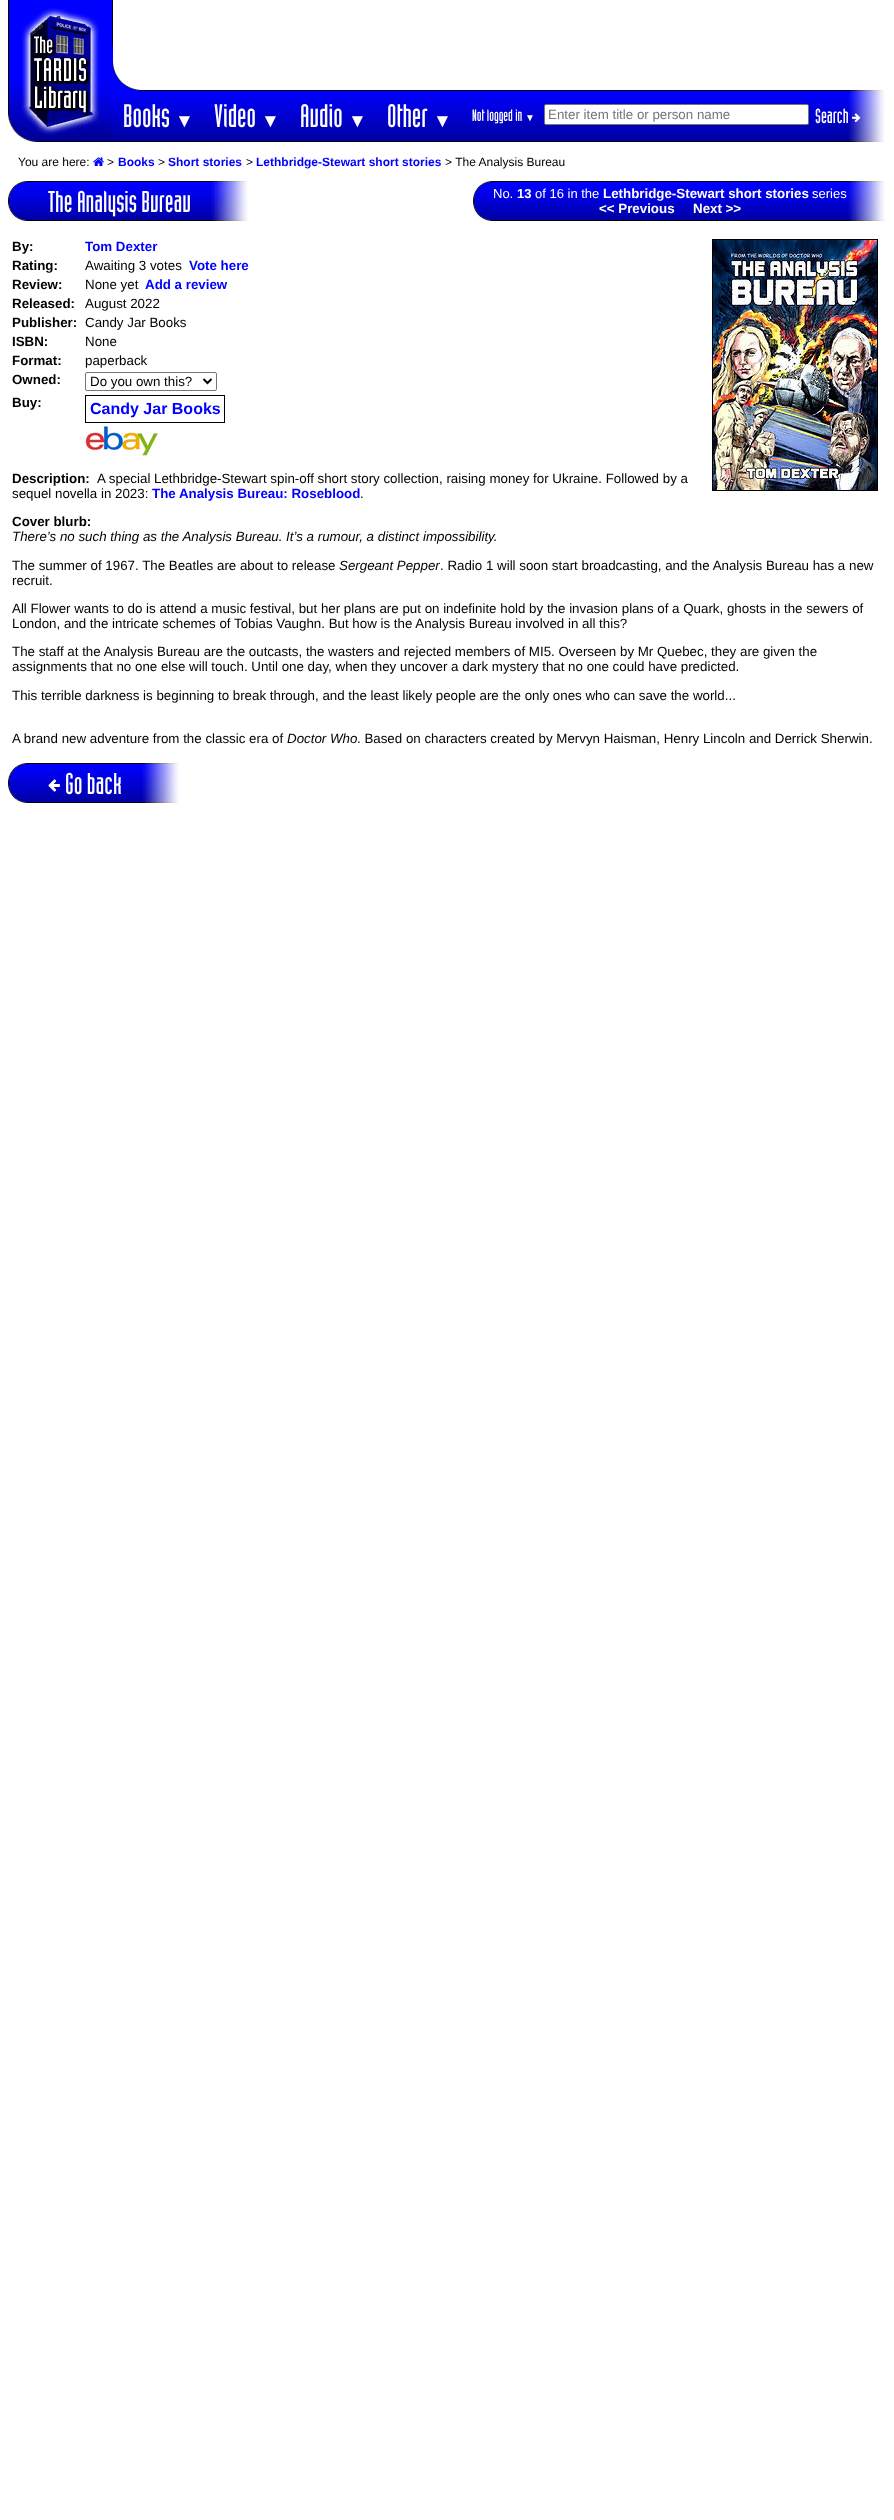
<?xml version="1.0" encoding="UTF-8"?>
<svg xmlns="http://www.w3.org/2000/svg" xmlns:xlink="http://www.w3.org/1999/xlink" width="894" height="2520">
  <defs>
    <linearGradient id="g1" gradientUnits="userSpaceOnUse" x1="480" y1="91" x2="480" y2="141"><stop offset="0" stop-color="#0000ff" /><stop offset="1" stop-color="#0000a0" /></linearGradient>
  </defs>
  <rect width="100%" height="100%" fill="#ffffff" />
  <image x="8" y="0" width="105" height="142" xlink:href="image1.png" />
  <image x="21" y="8" width="80" height="127" xlink:href="image2.png" />
  <image x="113" y="62" width="28" height="28" xlink:href="image3.png" />
  <rect x="143" y="90" width="706" height="1" fill="#000000" />
  <image x="849" y="90" width="37" height="1" xlink:href="image4.png" />
  <image x="113" y="90" width="30" height="1" xlink:href="image5.png" />
  <rect x="113" y="91" width="734" height="50" fill="url(#g1)" />
  <rect x="544.5" y="104.5" width="264" height="20" rx="1.5" fill="#ffffff" stroke="#767676" />
  <image x="847" y="91" width="39" height="50" xlink:href="image7.png" />
  <image x="852" y="113" width="9" height="10" xlink:href="image6.png" />
  <rect x="113" y="141" width="736" height="1" fill="#000000" />
  <image x="849" y="141" width="37" height="1" xlink:href="image4.png" />
  <image x="93" y="157" width="11" height="9" xlink:href="image8.png" />
  <image x="8" y="181" width="20" height="1" xlink:href="image9.png" />
  <rect x="28" y="181" width="182" height="1" fill="#000000" />
  <image x="210" y="181" width="39" height="1" xlink:href="image10.png" />
  <image x="8" y="182" width="20" height="37" xlink:href="image11.png" />
  <image x="8" y="201" width="20" height="19" xlink:href="image12.png" />
  <image x="28" y="182" width="182" height="38" xlink:href="image13.png" />
  <image x="210" y="182" width="39" height="38" xlink:href="image14.png" />
  <image x="8" y="220" width="20" height="1" xlink:href="image9.png" />
  <rect x="28" y="220" width="182" height="1" fill="#000000" />
  <image x="210" y="220" width="39" height="1" xlink:href="image10.png" />
  <image x="473" y="181" width="20" height="1" xlink:href="image9.png" />
  <rect x="493" y="181" width="354" height="1" fill="#000000" />
  <image x="847" y="181" width="39" height="1" xlink:href="image10.png" />
  <image x="473" y="182" width="20" height="37" xlink:href="image11.png" />
  <image x="473" y="201" width="20" height="19" xlink:href="image12.png" />
  <image x="493" y="182" width="354" height="38" xlink:href="image15.png" />
  <image x="847" y="182" width="39" height="38" xlink:href="image14.png" />
  <image x="473" y="220" width="20" height="1" xlink:href="image9.png" />
  <rect x="493" y="220" width="354" height="1" fill="#000000" />
  <image x="847" y="220" width="39" height="1" xlink:href="image10.png" />
  <rect x="85.5" y="372.5" width="131" height="18" rx="1.5" fill="none" stroke="#767676" />
  <path d="M 203.5 379 l 4 4 l 4 -4" fill="none" stroke="#000000" stroke-width="2" />
  <rect x="85.5" y="395.5" width="139" height="27" fill="none" stroke="#000000" />
  <image x="85" y="426" width="73" height="30" xlink:href="image16.png" />
  <rect x="712.5" y="239.5" width="165" height="251" fill="none" stroke="#000000" />
  <image x="713" y="240" width="164" height="250" xlink:href="image17.png" />
  <image x="8" y="763" width="20" height="1" xlink:href="image9.png" />
  <rect x="28" y="763" width="113" height="1" fill="#000000" />
  <image x="141" y="763" width="39" height="1" xlink:href="image10.png" />
  <image x="8" y="764" width="20" height="37" xlink:href="image11.png" />
  <image x="8" y="783" width="20" height="19" xlink:href="image12.png" />
  <image x="28" y="764" width="113" height="38" xlink:href="image18.png" />
  <image x="48" y="779" width="12" height="13" xlink:href="image19.png" />
  <image x="141" y="764" width="39" height="38" xlink:href="image14.png" />
  <image x="8" y="802" width="20" height="1" xlink:href="image9.png" />
  <rect x="28" y="802" width="113" height="1" fill="#000000" />
  <image x="141" y="802" width="39" height="1" xlink:href="image10.png" />
  <text x="123" y="127" style="font-family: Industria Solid; font-size: 32px; fill: #ffffff">Books</text>
  <text x="175" y="127" style="font-family: Liberation Sans; font-size: 19px; fill: #ffffff">▼</text>
  <text x="214" y="127" style="font-family: Industria Solid; font-size: 32px; fill: #ffffff">Video</text>
  <text x="261" y="127" style="font-family: Liberation Sans; font-size: 19px; fill: #ffffff">▼</text>
  <text x="300" y="127" style="font-family: Industria Solid; font-size: 32px; fill: #ffffff">Audio</text>
  <text x="348" y="127" style="font-family: Liberation Sans; font-size: 19px; fill: #ffffff">▼</text>
  <text x="387" y="127" style="font-family: Industria Solid; font-size: 32px; fill: #ffffff">Other</text>
  <text x="433" y="127" style="font-family: Liberation Sans; font-size: 19px; fill: #ffffff">▼</text>
  <text x="472" y="121" style="font-family: Industria Solid; font-size: 16px; fill: #ffffff">Not logged in</text>
  <text x="525" y="121" style="font-family: Liberation Sans; font-size: 10px; fill: #ffffff">▼</text>
  <text x="548" y="119" style="font-family: Liberation Sans; font-size: 13.33px; fill: #757575">Enter item title or person name</text>
  <text x="815" y="123" style="font-family: Industria Solid; font-size: 20px; fill: #ffffff">Search</text>
  <text x="18" y="166" style="font-family: Liberation Sans; font-size: 12px; fill: #000000">You are here:</text>
  <text x="107" y="166" style="font-family: Liberation Sans; font-size: 12px; fill: #000000">&gt;</text>
  <text x="118" y="166" style="font-family: Liberation Sans; font-size: 12px; font-weight: bold; fill: #0000ff">Books</text>
  <text x="158" y="166" style="font-family: Liberation Sans; font-size: 12px; fill: #000000">&gt;</text>
  <text x="168" y="166" style="font-family: Liberation Sans; font-size: 12px; font-weight: bold; fill: #0000ff">Short stories</text>
  <text x="246" y="166" style="font-family: Liberation Sans; font-size: 12px; fill: #000000">&gt;</text>
  <text x="256" y="166" style="font-family: Liberation Sans; font-size: 12px; font-weight: bold; fill: #0000ff">Lethbridge-Stewart short stories</text>
  <text x="445" y="166" style="font-family: Liberation Sans; font-size: 12px; fill: #000000">&gt; The Analysis Bureau</text>
  <text x="48" y="212" style="font-family: Industria Solid; font-size: 29.5px; fill: #ffffff">The Analysis Bureau</text>
  <text x="493" y="198" style="font-family: Liberation Sans; font-size: 13px; fill: #ffffff">No.</text>
  <text x="517" y="198" style="font-family: Liberation Sans; font-size: 13px; font-weight: bold; fill: #ffffff">13</text>
  <text x="535" y="198" style="font-family: Liberation Sans; font-size: 13px; fill: #ffffff">of 16 in the</text>
  <text x="603" y="198" style="font-family: Liberation Sans; font-size: 13.33px; font-weight: bold; fill: #ffffff">Lethbridge-Stewart short stories</text>
  <text x="812" y="198" style="font-family: Liberation Sans; font-size: 13px; fill: #ffffff">series</text>
  <text x="599" y="213" style="font-family: Liberation Sans; font-size: 13.33px; font-weight: bold; fill: #ffffff">&lt;&lt; Previous</text>
  <text x="693" y="213" style="font-family: Liberation Sans; font-size: 13.33px; font-weight: bold; fill: #ffffff">Next &gt;&gt;</text>
  <text x="12" y="251" style="font-family: Liberation Sans; font-size: 13.33px; font-weight: bold; fill: #000000">By:</text>
  <text x="85" y="251" style="font-family: Liberation Sans; font-size: 13.33px; font-weight: bold; fill: #0000ff">Tom Dexter</text>
  <text x="12" y="270" style="font-family: Liberation Sans; font-size: 13.33px; font-weight: bold; fill: #000000">Rating:</text>
  <text x="85" y="270" style="font-family: Liberation Sans; font-size: 13.33px; fill: #000000">Awaiting 3 votes</text>
  <text x="189" y="270" style="font-family: Liberation Sans; font-size: 13.33px; font-weight: bold; fill: #0000ff">Vote here</text>
  <text x="12" y="289" style="font-family: Liberation Sans; font-size: 13.33px; font-weight: bold; fill: #000000">Review:</text>
  <text x="85" y="289" style="font-family: Liberation Sans; font-size: 13.33px; fill: #000000">None yet</text>
  <text x="145" y="289" style="font-family: Liberation Sans; font-size: 13.33px; font-weight: bold; fill: #0000ff">Add a review</text>
  <text x="12" y="308" style="font-family: Liberation Sans; font-size: 13.33px; font-weight: bold; fill: #000000">Released:</text>
  <text x="85" y="308" style="font-family: Liberation Sans; font-size: 13.33px; fill: #000000">August 2022</text>
  <text x="12" y="327" style="font-family: Liberation Sans; font-size: 13.33px; font-weight: bold; fill: #000000">Publisher:</text>
  <text x="85" y="327" style="font-family: Liberation Sans; font-size: 13.33px; fill: #000000">Candy Jar Books</text>
  <text x="12" y="346" style="font-family: Liberation Sans; font-size: 13.33px; font-weight: bold; fill: #000000">ISBN:</text>
  <text x="85" y="346" style="font-family: Liberation Sans; font-size: 13.33px; fill: #000000">None</text>
  <text x="12" y="365" style="font-family: Liberation Sans; font-size: 13.33px; font-weight: bold; fill: #000000">Format:</text>
  <text x="85" y="365" style="font-family: Liberation Sans; font-size: 13.33px; fill: #000000">paperback</text>
  <text x="12" y="384" style="font-family: Liberation Sans; font-size: 13.33px; font-weight: bold; fill: #000000">Owned:</text>
  <text x="90" y="386" style="font-family: Liberation Sans; font-size: 13.33px; fill: #000000">Do you own this?</text>
  <text x="12" y="407" style="font-family: Liberation Sans; font-size: 13.33px; font-weight: bold; fill: #000000">Buy:</text>
  <text x="90" y="414" style="font-family: Liberation Sans; font-size: 16px; font-weight: bold; fill: #0000ff">Candy Jar Books</text>
  <text x="12" y="483" style="font-family: Liberation Sans; font-size: 13.33px; font-weight: bold; fill: #000000">Description:</text>
  <text x="97" y="483" style="font-family: Liberation Sans; font-size: 13.33px; fill: #000000">A special Lethbridge-Stewart spin-off short story collection, raising money for Ukraine. Followed by a</text>
  <text x="12" y="498" style="font-family: Liberation Sans; font-size: 13.33px; fill: #000000">sequel novella in 2023:</text>
  <text x="152" y="498" style="font-family: Liberation Sans; font-size: 13.33px; font-weight: bold; fill: #0000ff">The Analysis Bureau: Roseblood</text>
  <text x="360" y="498" style="font-family: Liberation Sans; font-size: 13.33px; fill: #000000">.</text>
  <text x="12" y="526" style="font-family: Liberation Sans; font-size: 13.33px; font-weight: bold; fill: #000000">Cover blurb:</text>
  <text x="12" y="541" style="font-family: Liberation Sans; font-size: 13.33px; font-style: italic; fill: #000000">There’s no such thing as the Analysis Bureau. It’s a rumour, a distinct impossibility.</text>
  <text x="12" y="570" style="font-family: Liberation Sans; font-size: 13.33px; fill: #000000">The summer of 1967. The Beatles are about to release</text>
  <text x="339" y="570" style="font-family: Liberation Sans; font-size: 13.33px; font-style: italic; fill: #000000">Sergeant Pepper</text>
  <text x="440" y="570" style="font-family: Liberation Sans; font-size: 13.33px; fill: #000000">. Radio 1 will soon start broadcasting, and the Analysis Bureau has a new</text>
  <text x="12" y="585" style="font-family: Liberation Sans; font-size: 13.33px; fill: #000000">recruit.</text>
  <text x="12" y="613" style="font-family: Liberation Sans; font-size: 13.33px; fill: #000000">All Flower wants to do is attend a music festival, but her plans are put on indefinite hold by the invasion plans of a Quark, ghosts in the sewers of</text>
  <text x="12" y="628" style="font-family: Liberation Sans; font-size: 13.33px; fill: #000000">London, and the intricate schemes of Tobias Vaughn. But how is the Analysis Bureau involved in all this?</text>
  <text x="12" y="656" style="font-family: Liberation Sans; font-size: 13.33px; fill: #000000">The staff at the Analysis Bureau are the outcasts, the wasters and rejected members of MI5. Overseen by Mr Quebec, they are given the</text>
  <text x="12" y="671" style="font-family: Liberation Sans; font-size: 13.33px; fill: #000000">assignments that no one else will touch. Until one day, when they uncover a dark mystery that no one could have predicted.</text>
  <text x="12" y="700" style="font-family: Liberation Sans; font-size: 13.33px; fill: #000000">This terrible darkness is beginning to break through, and the least likely people are the only ones who can save the world...</text>
  <text x="12" y="743" style="font-family: Liberation Sans; font-size: 13.33px; fill: #000000">A brand new adventure from the classic era of</text>
  <text x="287" y="743" style="font-family: Liberation Sans; font-size: 13.33px; font-style: italic; fill: #000000">Doctor Who</text>
  <text x="357" y="743" style="font-family: Liberation Sans; font-size: 13.33px; fill: #000000">. Based on characters created by Mervyn Haisman, Henry Lincoln and Derrick Sherwin.</text>
  <text x="65" y="794" style="font-family: Industria Solid; font-size: 29.5px; fill: #ffffff">Go back</text>
</svg>
